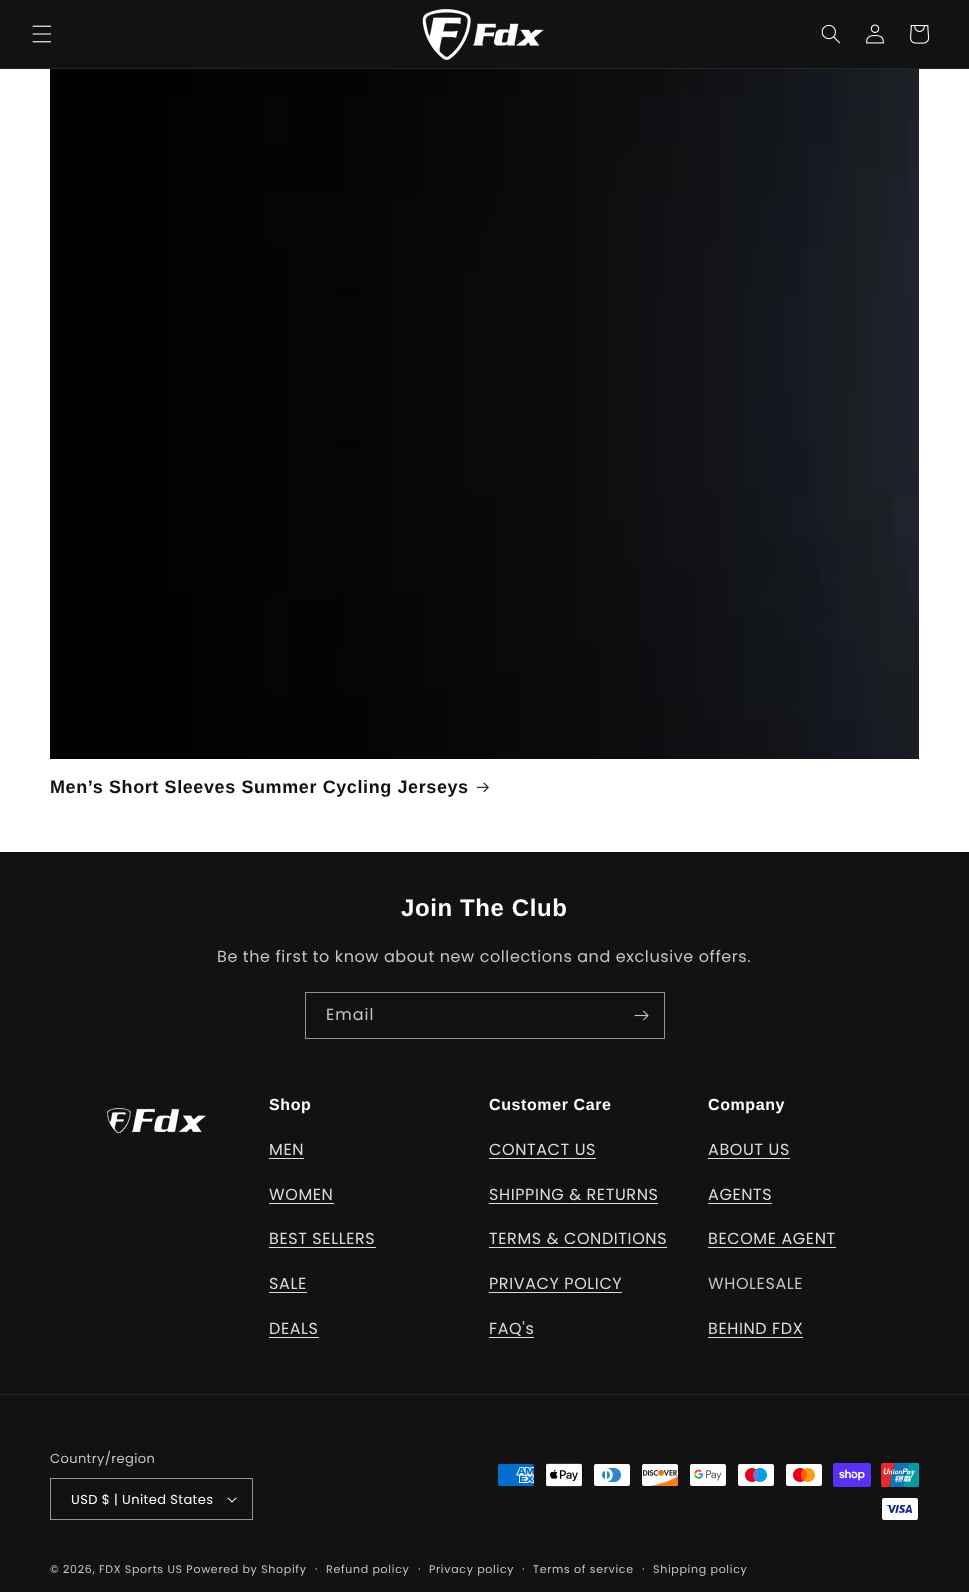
<?xml version="1.0" encoding="UTF-8"?>
<svg xmlns="http://www.w3.org/2000/svg" xmlns:xlink="http://www.w3.org/1999/xlink" width="969" height="1592">
  <rect width="100%" height="100%" fill="#ffffff" />
  <rect width="969" height="68" fill="#121212" />
  <rect y="68" width="969" height="1" fill="#252525" />
  <image x="32" y="25" width="20" height="18" xlink:href="image1.png" />
  <image x="422" y="8" width="122" height="52" xlink:href="image2.png" />
  <image x="821" y="24" width="19" height="20" xlink:href="image3.png" />
  <image x="866" y="24" width="18" height="20" xlink:href="image4.png" />
  <image x="910" y="25" width="20" height="19" xlink:href="image5.png" />
  <image x="50" y="69" width="869" height="690" xlink:href="image6.png" />
  <image x="477" y="782" width="12" height="11" xlink:href="image7.png" />
  <rect y="852" width="969" height="740" fill="#121212" />
  <rect x="305.5" y="992.5" width="359" height="46" fill="none" stroke="#949494" />
  <image x="634" y="1010" width="15" height="11" xlink:href="image8.png" />
  <image x="107" y="1108" width="99" height="25" xlink:href="image9.png" />
  <rect x="269" y="1158" width="35" height="1" fill="#dbdbdb" />
  <rect x="269" y="1203" width="65" height="1" fill="#dbdbdb" />
  <rect x="269" y="1247" width="107" height="1" fill="#dbdbdb" />
  <rect x="269" y="1292" width="38" height="1" fill="#dbdbdb" />
  <rect x="269" y="1337" width="50" height="1" fill="#dbdbdb" />
  <rect x="489" y="1158" width="107" height="1" fill="#dbdbdb" />
  <rect x="489" y="1203" width="169" height="1" fill="#dbdbdb" />
  <rect x="489" y="1247" width="178" height="1" fill="#dbdbdb" />
  <rect x="489" y="1292" width="133" height="1" fill="#dbdbdb" />
  <rect x="489" y="1337" width="45" height="1" fill="#dbdbdb" />
  <rect x="708" y="1158" width="82" height="1" fill="#dbdbdb" />
  <rect x="708" y="1203" width="64" height="1" fill="#dbdbdb" />
  <rect x="708" y="1247" width="128" height="1" fill="#dbdbdb" />
  <rect x="708" y="1337" width="95" height="1" fill="#dbdbdb" />
  <rect y="1394" width="969" height="1" fill="#252525" />
  <image x="227" y="1497" width="10" height="6" xlink:href="image10.png" />
  <rect x="50.5" y="1478.5" width="202" height="41" fill="none" stroke="#949494" />
  <image x="498" y="1464" width="36" height="22" xlink:href="image11.png" />
  <image x="545" y="1463" width="38" height="24" xlink:href="image12.png" />
  <image x="594" y="1464" width="36" height="22" xlink:href="image13.png" />
  <image x="642" y="1464" width="36" height="22" xlink:href="image14.png" />
  <image x="690" y="1464" width="36" height="22" xlink:href="image15.png" />
  <image x="738" y="1464" width="36" height="22" xlink:href="image16.png" />
  <image x="786" y="1464" width="36" height="22" xlink:href="image17.png" />
  <image x="833" y="1463" width="38" height="24" xlink:href="image18.png" />
  <image x="881" y="1463" width="38" height="24" xlink:href="image19.png" />
  <image x="882" y="1498" width="36" height="22" xlink:href="image20.png" />
  <text x="50" y="793" style="font-family: Liberation Sans; font-size: 18px; font-weight: bold; letter-spacing: 0.6px; fill: #121212">Men’s Short Sleeves Summer Cycling Jerseys</text>
  <text x="401" y="916" style="font-family: Liberation Sans; font-size: 24px; font-weight: bold; letter-spacing: 0.6px; fill: #ffffff">Join The Club</text>
  <text x="217" y="962" style="font-family: Poppins; font-size: 16px; letter-spacing: 0.6px; fill: #c4c4c4">Be the first to know about new collections and exclusive offers.</text>
  <text x="326" y="1020" style="font-family: Poppins; font-size: 16px; letter-spacing: 1px; fill: #c4c4c4">Email</text>
  <text x="269" y="1110" style="font-family: Liberation Sans; font-size: 16px; font-weight: bold; letter-spacing: 0.6px; fill: #ffffff">Shop</text>
  <text x="269" y="1155" style="font-family: Poppins; font-size: 16px; letter-spacing: 0.6px; fill: #dbdbdb">MEN</text>
  <text x="269" y="1200" style="font-family: Poppins; font-size: 16px; letter-spacing: 0.6px; fill: #dbdbdb">WOMEN</text>
  <text x="269" y="1244" style="font-family: Poppins; font-size: 16px; letter-spacing: 0.6px; fill: #dbdbdb">BEST SELLERS</text>
  <text x="269" y="1289" style="font-family: Poppins; font-size: 16px; letter-spacing: 0.6px; fill: #dbdbdb">SALE</text>
  <text x="269" y="1334" style="font-family: Poppins; font-size: 16px; letter-spacing: 0.6px; fill: #dbdbdb">DEALS</text>
  <text x="489" y="1110" style="font-family: Liberation Sans; font-size: 16px; font-weight: bold; letter-spacing: 0.6px; fill: #ffffff">Customer Care</text>
  <text x="489" y="1155" style="font-family: Poppins; font-size: 16px; letter-spacing: 0.6px; fill: #dbdbdb">CONTACT US</text>
  <text x="489" y="1200" style="font-family: Poppins; font-size: 16px; letter-spacing: 0.6px; fill: #dbdbdb">SHIPPING &amp; RETURNS</text>
  <text x="489" y="1244" style="font-family: Poppins; font-size: 16px; letter-spacing: 0.6px; fill: #dbdbdb">TERMS &amp; CONDITIONS</text>
  <text x="489" y="1289" style="font-family: Poppins; font-size: 16px; letter-spacing: 0.6px; fill: #dbdbdb">PRIVACY POLICY</text>
  <text x="489" y="1334" style="font-family: Poppins; font-size: 16px; letter-spacing: 0.6px; fill: #dbdbdb">FAQ's</text>
  <text x="708" y="1110" style="font-family: Liberation Sans; font-size: 16px; font-weight: bold; letter-spacing: 0.6px; fill: #ffffff">Company</text>
  <text x="708" y="1155" style="font-family: Poppins; font-size: 16px; letter-spacing: 0.6px; fill: #dbdbdb">ABOUT US</text>
  <text x="708" y="1200" style="font-family: Poppins; font-size: 16px; letter-spacing: 0.6px; fill: #dbdbdb">AGENTS</text>
  <text x="708" y="1244" style="font-family: Poppins; font-size: 16px; letter-spacing: 0.6px; fill: #dbdbdb">BECOME AGENT</text>
  <text x="708" y="1289" style="font-family: Poppins; font-size: 16px; letter-spacing: 0.6px; fill: #c4c4c4">WHOLESALE</text>
  <text x="708" y="1334" style="font-family: Poppins; font-size: 16px; letter-spacing: 0.6px; fill: #dbdbdb">BEHIND FDX</text>
  <text x="50" y="1463" style="font-family: Poppins; font-size: 13px; letter-spacing: 0.4px; fill: #c4c4c4">Country/region</text>
  <text x="71" y="1504" style="font-family: Poppins; font-size: 13px; letter-spacing: 0.4px; fill: #ffffff">USD $ | United States</text>
  <text x="50" y="1573" style="font-family: Poppins; font-size: 11px; letter-spacing: 0.7px; fill: #c4c4c4">© 2026, FDX Sports US Powered by Shopify</text>
  <text x="315" y="1573" style="font-family: Poppins; font-size: 12px; letter-spacing: 0.7px; fill: #c4c4c4">·</text>
  <text x="326" y="1573" style="font-family: Poppins; font-size: 11px; letter-spacing: 0.7px; fill: #c4c4c4">Refund policy</text>
  <text x="418" y="1573" style="font-family: Poppins; font-size: 12px; letter-spacing: 0.7px; fill: #c4c4c4">·</text>
  <text x="429" y="1573" style="font-family: Poppins; font-size: 11px; letter-spacing: 0.7px; fill: #c4c4c4">Privacy policy</text>
  <text x="522" y="1573" style="font-family: Poppins; font-size: 12px; letter-spacing: 0.7px; fill: #c4c4c4">·</text>
  <text x="533" y="1573" style="font-family: Poppins; font-size: 11px; letter-spacing: 0.7px; fill: #c4c4c4">Terms of service</text>
  <text x="642" y="1573" style="font-family: Poppins; font-size: 12px; letter-spacing: 0.7px; fill: #c4c4c4">·</text>
  <text x="653" y="1573" style="font-family: Poppins; font-size: 11px; letter-spacing: 0.7px; fill: #c4c4c4">Shipping policy</text>
</svg>
